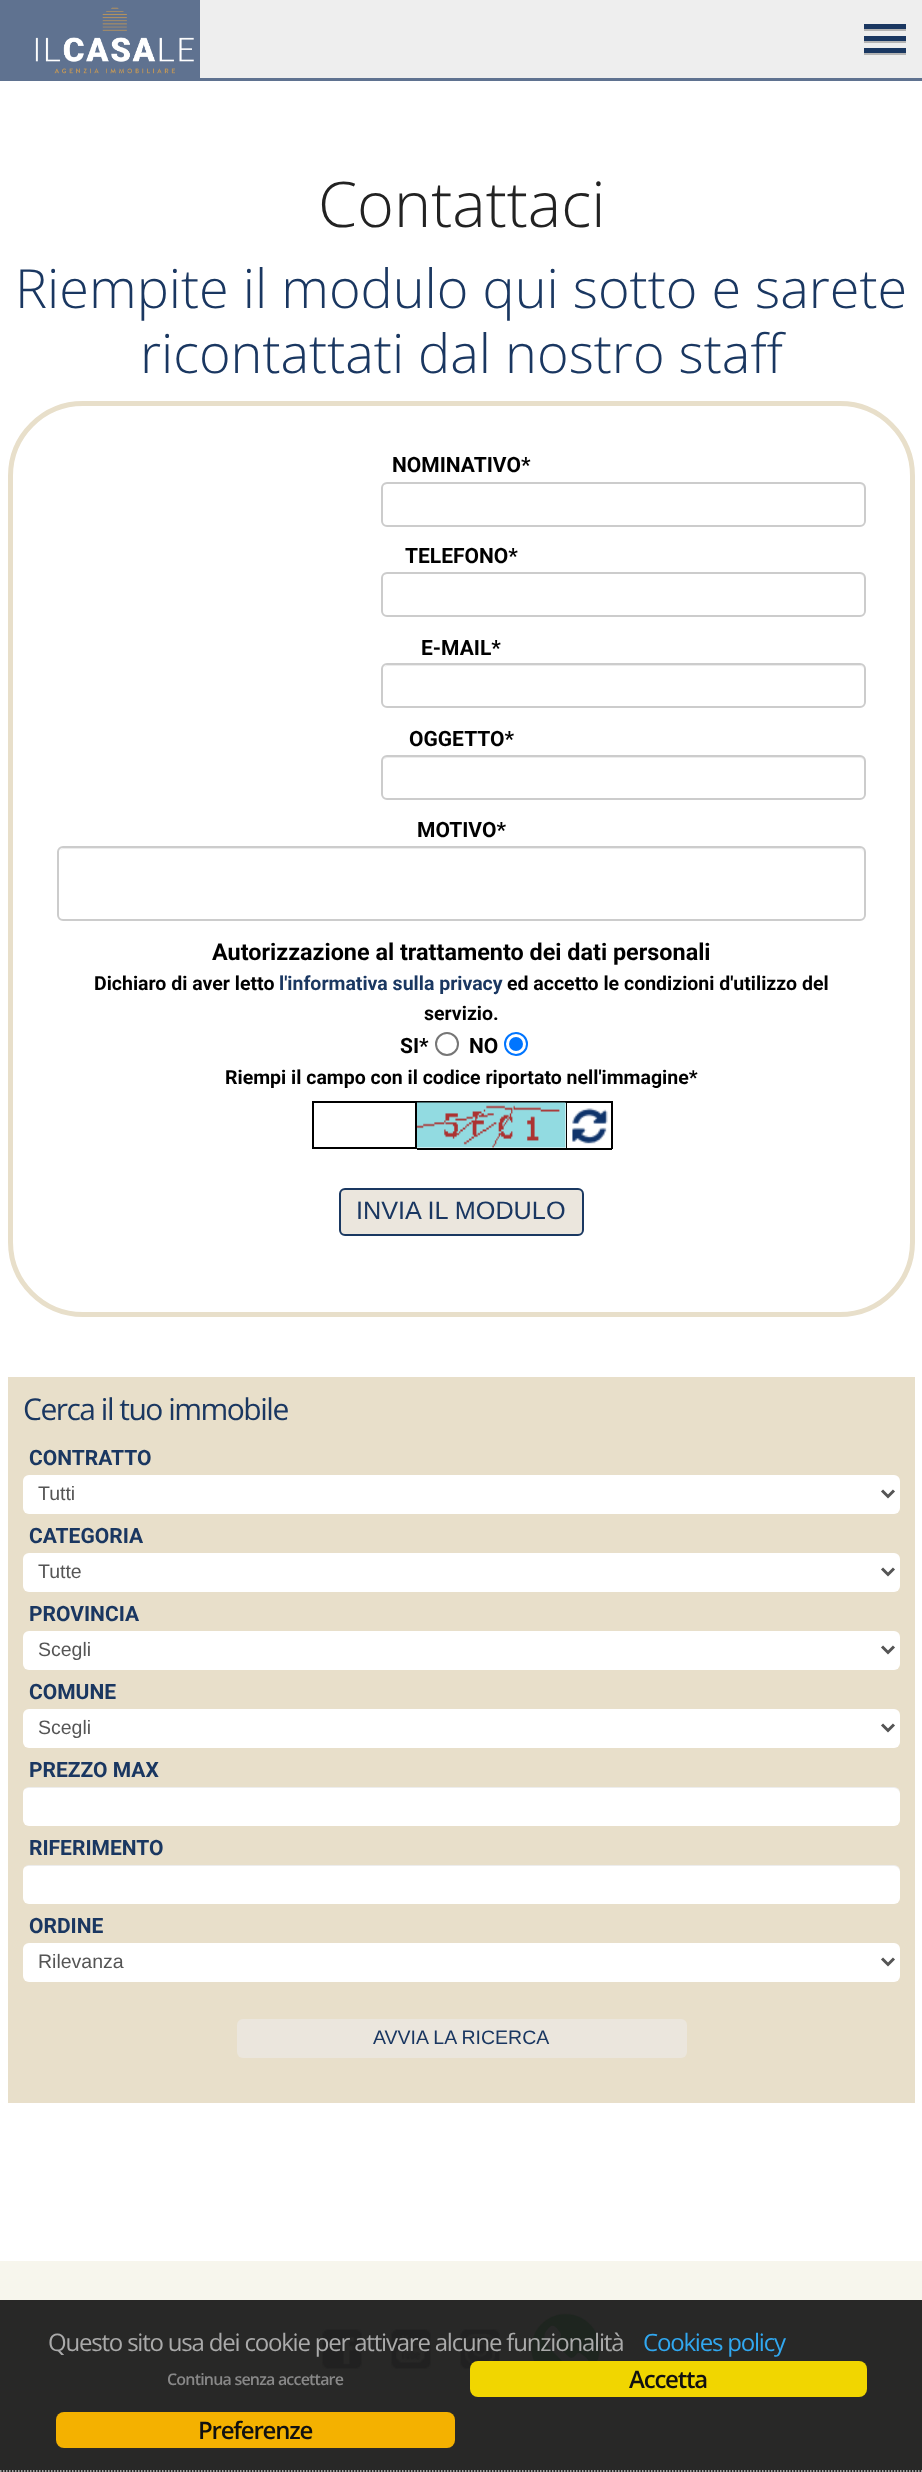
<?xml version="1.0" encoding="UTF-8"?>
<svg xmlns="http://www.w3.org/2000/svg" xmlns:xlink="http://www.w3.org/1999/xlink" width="922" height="2472">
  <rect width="100%" height="100%" fill="#ffffff" />
  <rect width="922" height="81" fill="#5f7290" />
  <image x="35" y="7" width="159" height="67" xlink:href="image1.png" />
  <rect x="200" width="722" height="78" fill="#eeeeee" />
  <rect x="864" y="29" width="42" height="2" fill="#b3b3b3" />
  <rect x="864" y="24" width="42" height="5" fill="#1a3761" />
  <rect x="864" y="41" width="42" height="2" fill="#b3b3b3" />
  <rect x="864" y="36" width="42" height="5" fill="#1a3761" />
  <rect x="864" y="53" width="42" height="2" fill="#b3b3b3" />
  <rect x="864" y="48" width="42" height="5" fill="#1a3761" />
  <rect x="10.5" y="403.5" width="902" height="911" rx="72.5" fill="none" stroke="#e8dfca" stroke-width="5" />
  <path d="M 387 484 h 473 c 2 0 4 3 4 5 v -1 c 0 -3 -2 -5 -5 -5 h -471 c -2 0 -4 1 -5 3 c 1 -1 3 -2 4 -2 z" fill="#ececec" />
  <rect x="382" y="483" width="483" height="43" rx="5" fill="none" stroke="#cccccc" stroke-width="2" />
  <path d="M 387 574 h 473 c 2 0 4 3 4 5 v -1 c 0 -3 -2 -5 -5 -5 h -471 c -2 0 -4 1 -5 3 c 1 -1 3 -2 4 -2 z" fill="#ececec" />
  <rect x="382" y="573" width="483" height="43" rx="5" fill="none" stroke="#cccccc" stroke-width="2" />
  <path d="M 387 666 h 473 c 2 0 4 2 4 4 c 0 -3 -2 -5 -5 -5 h -471 c -2 0 -3 1 -4 2 z" fill="#ececec" />
  <rect x="382" y="664" width="483" height="43" rx="5" fill="none" stroke="#cccccc" stroke-width="2" />
  <path d="M 387 758 h 473 c 2 0 4 2 4 4 v -1 c 0 -3 -2 -5 -5 -5 h -471 c -2 0 -4 2 -5 4 c 1 -1 3 -2 4 -2 z" fill="#ececec" />
  <rect x="382" y="756" width="483" height="43" rx="5" fill="none" stroke="#cccccc" stroke-width="2" />
  <path d="M 63 849 h 797 c 2 0 4 2 4 5 v -1 c 0 -3 -2 -5 -5 -5 h -795 c -2 0 -3 1 -4 2 z" fill="#ececec" />
  <rect x="58" y="847" width="807" height="73" rx="5" fill="none" stroke="#cccccc" stroke-width="2" />
  <circle cx="447" cy="1044" r="11" fill="none" stroke="#767676" stroke-width="2" />
  <circle cx="516" cy="1044" r="11" fill="none" stroke="#0075ff" stroke-width="2" />
  <circle cx="516" cy="1044" r="7" fill="#0075ff" />
  <rect x="313" y="1102" width="103" height="46" fill="none" stroke="#000000" stroke-width="2" />
  <rect x="417" y="1101" width="195" height="2" fill="#000000" />
  <rect x="566" y="1101" width="1" height="48" fill="#000000" />
  <rect x="417" y="1148" width="150" height="2" fill="#000000" />
  <image x="417" y="1102" width="149" height="46" xlink:href="image2.png" />
  <image x="572" y="1108" width="36" height="36" xlink:href="image3.png" />
  <rect x="611" y="1101" width="2" height="48" fill="#000000" />
  <rect x="567" y="1148" width="45" height="2" fill="#000000" />
  <rect x="340" y="1189" width="243" height="46" rx="5" fill="#ebe6dd" stroke="#1a3861" stroke-width="2" />
  <rect x="8" y="1377" width="907" height="726" fill="#e8dfca" />
  <rect x="23" y="1475" width="877" height="39" rx="6" fill="#ffffff" />
  <path d="M 882 1490.5 l 6 6 l 6 -6" fill="none" stroke="#555555" stroke-width="3" />
  <rect x="23" y="1553" width="877" height="39" rx="6" fill="#ffffff" />
  <path d="M 882 1568.5 l 6 6 l 6 -6" fill="none" stroke="#555555" stroke-width="3" />
  <rect x="23" y="1631" width="877" height="39" rx="6" fill="#ffffff" />
  <path d="M 882 1646.5 l 6 6 l 6 -6" fill="none" stroke="#555555" stroke-width="3" />
  <rect x="23" y="1709" width="877" height="39" rx="6" fill="#ffffff" />
  <path d="M 882 1724.5 l 6 6 l 6 -6" fill="none" stroke="#555555" stroke-width="3" />
  <rect x="23" y="1787" width="877" height="39" rx="6" fill="#ffffff" />
  <path d="M 28 1788 h 866 c 3 0 6 3 6 6 v -1 c 0 -3 -3 -6 -6 -6 h -865 c -2 0 -4 1 -5 3 c 1 -1 3 -2 4 -2 z" fill="#000000" fill-opacity="0.07" />
  <rect x="23" y="1865" width="877" height="39" rx="6" fill="#ffffff" />
  <path d="M 28 1866 h 866 c 3 0 6 3 6 6 v -1 c 0 -3 -3 -6 -6 -6 h -865 c -2 0 -4 1 -5 3 c 1 -1 3 -2 4 -2 z" fill="#000000" fill-opacity="0.07" />
  <rect x="23" y="1943" width="877" height="39" rx="6" fill="#ffffff" />
  <path d="M 882 1958.5 l 6 6 l 6 -6" fill="none" stroke="#555555" stroke-width="3" />
  <rect x="237" y="2019" width="450" height="39" rx="6" fill="#ebe6dd" />
  <rect y="2261" width="922" height="39" fill="#f7f6ed" />
  <rect y="2300" width="922" height="172" fill="#282827" />
  <image x="322" y="2329" width="40" height="40" xlink:href="image4.png" />
  <image x="391" y="2329" width="40" height="40" xlink:href="image5.png" />
  <image x="460" y="2329" width="40" height="40" xlink:href="image6.png" />
  <image x="531" y="2313" width="69" height="48" xlink:href="image7.png" />
  <path d="M 0 2471 h 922.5" fill="none" stroke="#cccccc" stroke-width="1.5" stroke-dasharray="1.5 1.5" />
  <rect x="470" y="2361" width="397" height="36" rx="8" fill="#f1d600" />
  <rect x="56" y="2412" width="399" height="36" rx="8" fill="#f4b100" />
  <text x="318" y="227" style="font-family: Open Sans; font-size: 63px; font-weight: 300; fill: #222222">Contattaci</text>
  <text x="15" y="308" style="font-family: Open Sans; font-size: 54px; font-weight: 300; fill: #1a3761">Riempite il modulo qui sotto e sarete</text>
  <text x="140" y="373" style="font-family: Open Sans; font-size: 54px; font-weight: 300; fill: #1a3761">ricontattati dal nostro staff</text>
  <text x="392" y="472" style="font-family: Roboto; font-size: 21px; font-weight: bold; fill: #000000">NOMINATIVO*</text>
  <text x="405" y="563" style="font-family: Roboto; font-size: 21px; font-weight: bold; fill: #000000">TELEFONO*</text>
  <text x="421" y="655" style="font-family: Roboto; font-size: 21px; font-weight: bold; fill: #000000">E-MAIL*</text>
  <text x="409" y="746" style="font-family: Roboto; font-size: 21px; font-weight: bold; fill: #000000">OGGETTO*</text>
  <text x="417" y="837" style="font-family: Roboto; font-size: 21px; font-weight: bold; fill: #000000">MOTIVO*</text>
  <text x="212" y="960" style="font-family: Roboto; font-size: 23.4px; font-weight: bold; fill: #000000">Autorizzazione al trattamento dei dati personali</text>
  <text x="94" y="990" style="font-family: Roboto; font-size: 19.5px; font-weight: bold; fill: #000000">Dichiaro di aver letto</text>
  <text x="279" y="990" style="font-family: Roboto; font-size: 19.5px; font-weight: bold; fill: #1a3761">l'informativa sulla privacy</text>
  <text x="507" y="990" style="font-family: Roboto; font-size: 19.5px; font-weight: bold; fill: #000000">ed accetto le condizioni d'utilizzo del</text>
  <text x="424" y="1020" style="font-family: Roboto; font-size: 19.5px; font-weight: bold; fill: #000000">servizio.</text>
  <text x="400" y="1053" style="font-family: Roboto; font-size: 21px; font-weight: bold; fill: #000000">SI*</text>
  <text x="469" y="1053" style="font-family: Roboto; font-size: 21px; font-weight: bold; fill: #000000">NO</text>
  <text x="225" y="1084" style="font-family: Roboto; font-size: 19.5px; font-weight: bold; fill: #000000">Riempi il campo con il codice riportato nell'immagine*</text>
  <text x="356" y="1219" style="font-family: Liberation Sans; font-size: 25.25px; fill: #1a3761">INVIA IL MODULO</text>
  <text x="23" y="1420" style="font-family: Open Sans; font-size: 30px; letter-spacing: -1.5px; fill: #1a3761">Cerca il tuo immobile</text>
  <text x="29" y="1465" style="font-family: Roboto; font-size: 21px; font-weight: bold; fill: #1a3761">CONTRATTO</text>
  <text x="38" y="1500" style="font-family: Liberation Sans; font-size: 19.5px; fill: #555555">Tutti</text>
  <text x="29" y="1543" style="font-family: Roboto; font-size: 21px; font-weight: bold; fill: #1a3761">CATEGORIA</text>
  <text x="38" y="1578" style="font-family: Liberation Sans; font-size: 19.5px; fill: #555555">Tutte</text>
  <text x="29" y="1621" style="font-family: Roboto; font-size: 21px; font-weight: bold; fill: #1a3761">PROVINCIA</text>
  <text x="38" y="1656" style="font-family: Liberation Sans; font-size: 19.5px; fill: #555555">Scegli</text>
  <text x="29" y="1699" style="font-family: Roboto; font-size: 21px; font-weight: bold; fill: #1a3761">COMUNE</text>
  <text x="38" y="1734" style="font-family: Liberation Sans; font-size: 19.5px; fill: #555555">Scegli</text>
  <text x="29" y="1777" style="font-family: Roboto; font-size: 21px; font-weight: bold; fill: #1a3761">PREZZO MAX</text>
  <text x="29" y="1855" style="font-family: Roboto; font-size: 21px; font-weight: bold; fill: #1a3761">RIFERIMENTO</text>
  <text x="29" y="1933" style="font-family: Roboto; font-size: 21px; font-weight: bold; fill: #1a3761">ORDINE</text>
  <text x="38" y="1968" style="font-family: Liberation Sans; font-size: 19.5px; fill: #555555">Rilevanza</text>
  <text x="373" y="2044" style="font-family: Liberation Sans; font-size: 19.5px; fill: #1a3761">AVVIA LA RICERCA</text>
  <text x="48" y="2351" style="font-family: Open Sans; font-size: 24px; letter-spacing: -1.2px; fill: #aaaaaa">Questo sito usa dei cookie per attivare alcune funzionalità</text>
  <text x="643" y="2351" style="font-family: Open Sans; font-size: 24px; letter-spacing: -1.2px; fill: #31a8f0">Cookies policy</text>
  <text x="167" y="2385" style="font-family: Open Sans; font-size: 16px; font-weight: 600; letter-spacing: -0.8px; fill: #888888">Continua senza accettare</text>
  <text x="629" y="2388" style="font-family: Open Sans; font-size: 24px; font-weight: 600; letter-spacing: -1.2px; fill: #111111">Accetta</text>
  <text x="198" y="2439" style="font-family: Open Sans; font-size: 24px; font-weight: 600; letter-spacing: -1.2px; fill: #111111">Preferenze</text>
</svg>
